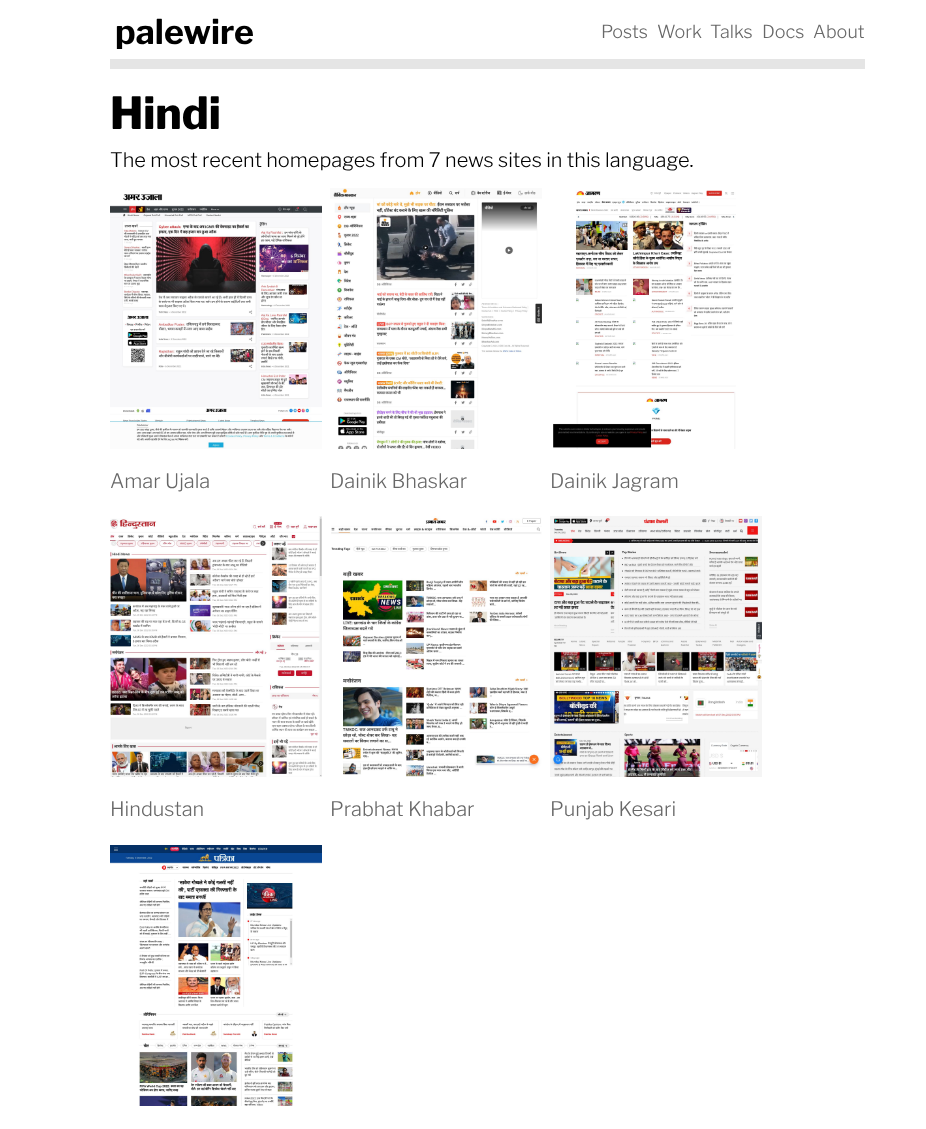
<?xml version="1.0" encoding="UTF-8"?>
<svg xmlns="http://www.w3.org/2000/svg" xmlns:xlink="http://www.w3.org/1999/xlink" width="926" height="1129">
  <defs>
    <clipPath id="clip1"><rect x="110" y="15" width="755" height="34" /></clipPath>
  </defs>
  <rect width="100%" height="100%" fill="#ffffff" />
  <rect x="110" y="59" width="755" height="10" fill="#e5e5e5" />
  <image x="110" y="194" width="212" height="255" xlink:href="image1.png" />
  <image x="330" y="188" width="212" height="261" xlink:href="image2.png" />
  <image x="553" y="190" width="183" height="259" xlink:href="image3.png" />
  <image x="110" y="516" width="212" height="261" xlink:href="image4.png" />
  <image x="331" y="516" width="211" height="261" xlink:href="image5.png" />
  <image x="550" y="516" width="212" height="261" xlink:href="image6.png" />
  <image x="110" y="845" width="212" height="261" xlink:href="image7.png" />
  <g clip-path="url(#clip1)">
    <text x="115" y="44" style="font-family: Libre Franklin; font-size: 34px; font-weight: bold; fill: #000000">palewire</text>
  </g>
  <text x="601" y="38" style="font-family: Libre Franklin; font-size: 18px; font-weight: 300; fill: #686868">Posts</text>
  <text x="657" y="38" style="font-family: Libre Franklin; font-size: 18px; font-weight: 300; fill: #686868">Work</text>
  <text x="710" y="38" style="font-family: Libre Franklin; font-size: 18px; font-weight: 300; fill: #686868">Talks</text>
  <text x="762" y="38" style="font-family: Libre Franklin; font-size: 18px; font-weight: 300; fill: #686868">Docs</text>
  <text x="813" y="38" style="font-family: Libre Franklin; font-size: 18px; font-weight: 300; fill: #686868">About</text>
  <text x="110" y="129" style="font-family: Libre Franklin; font-size: 44px; font-weight: 800; fill: #000000">Hindi</text>
  <text x="110" y="167" style="font-family: Libre Franklin; font-size: 20px; font-weight: 300; fill: #000000">The most recent homepages from 7 news sites in this language.</text>
  <text x="110" y="488" style="font-family: Libre Franklin; font-size: 20px; font-weight: 300; fill: #686868">Amar Ujala</text>
  <text x="330" y="488" style="font-family: Libre Franklin; font-size: 20px; font-weight: 300; fill: #686868">Dainik Bhaskar</text>
  <text x="550" y="488" style="font-family: Libre Franklin; font-size: 20px; font-weight: 300; fill: #686868">Dainik Jagram</text>
  <text x="110" y="816" style="font-family: Libre Franklin; font-size: 20px; font-weight: 300; fill: #686868">Hindustan</text>
  <text x="330" y="816" style="font-family: Libre Franklin; font-size: 20px; font-weight: 300; fill: #686868">Prabhat Khabar</text>
  <text x="550" y="816" style="font-family: Libre Franklin; font-size: 20px; font-weight: 300; fill: #686868">Punjab Kesari</text>
</svg>
